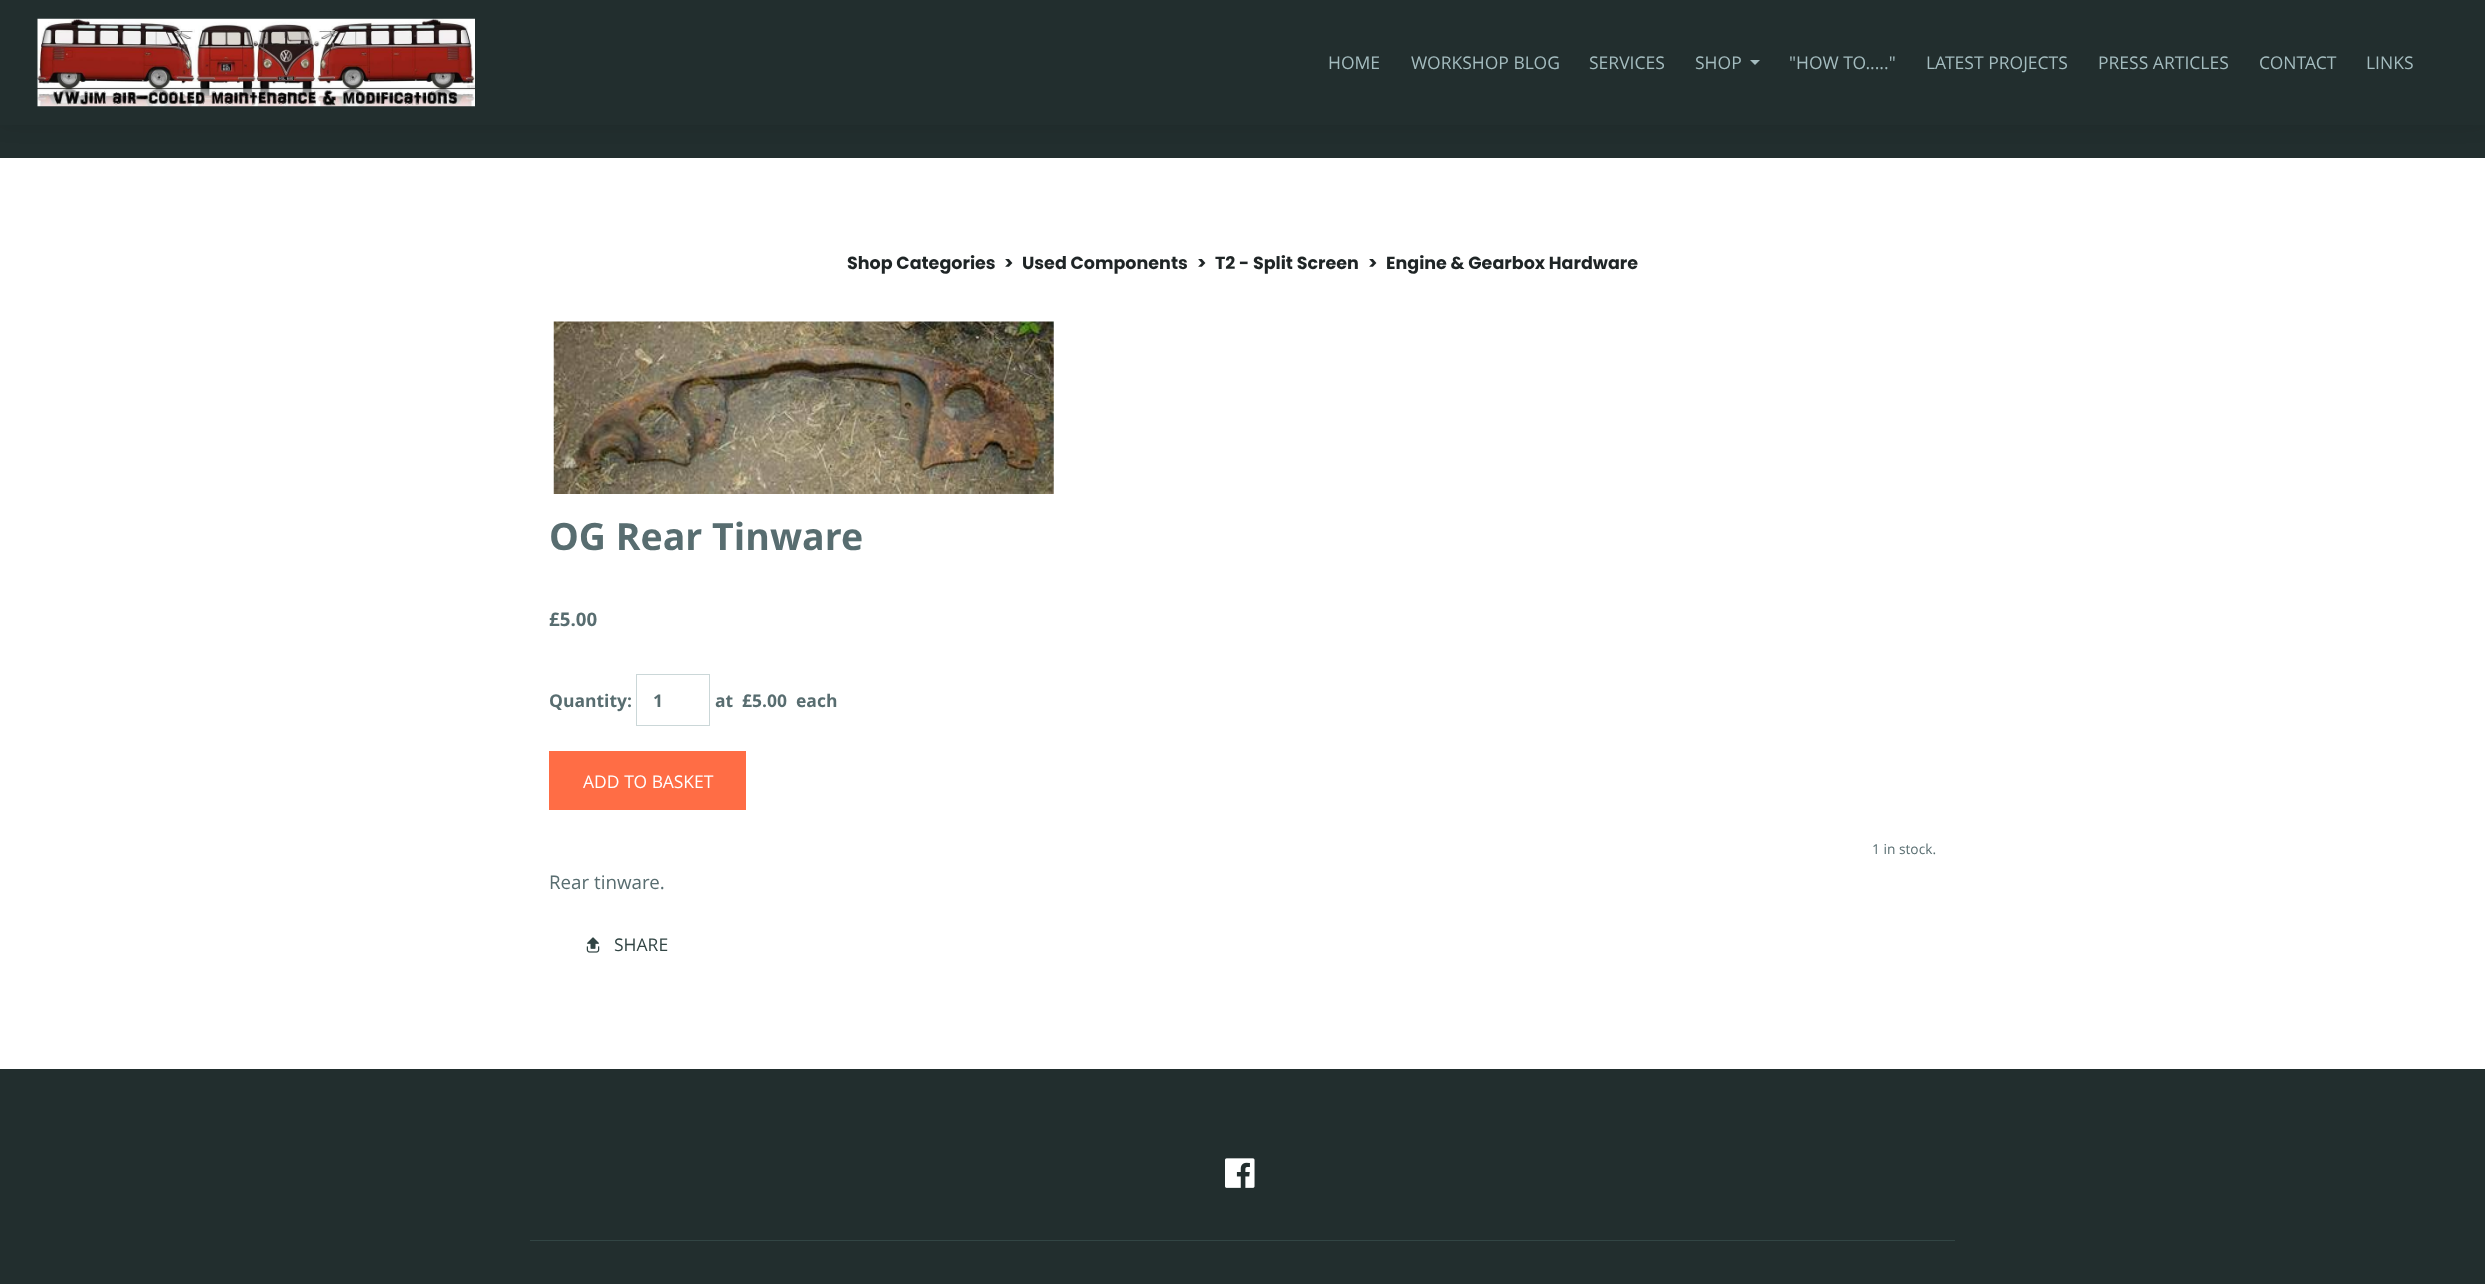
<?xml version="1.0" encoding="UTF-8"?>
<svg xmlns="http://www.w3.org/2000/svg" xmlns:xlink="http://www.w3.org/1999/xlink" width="2485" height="1284">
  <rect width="100%" height="100%" fill="#ffffff" />
  <rect y="125" width="2485" height="33" fill="#222e2e" />
  <rect width="2485" height="125" fill="#000000" fill-opacity="0.1" filter="blur(9.5px)" />
  <rect width="2485" height="125" fill="#222e2e" />
  <image x="37" y="18" width="438" height="89" xlink:href="image1.png" />
  <path d="M 1750 60 h 10 l -5 5 z" fill="#a4bcbf" />
  <image x="553" y="321" width="501" height="173" xlink:href="image2.png" />
  <rect x="636.5" y="674.5" width="73" height="51" fill="none" stroke="#cbd7d8" />
  <rect x="549" y="751" width="197" height="59" fill="#ff6d45" />
  <image x="586" y="937" width="14" height="16" xlink:href="image3.png" />
  <rect y="1069" width="2485" height="215" fill="#222e2e" />
  <image x="1225" y="1158" width="30" height="30" xlink:href="image4.png" />
  <rect x="530" y="1240" width="1425" height="1" fill="#324544" />
  <text x="1328" y="69" style="font-family: Open Sans; font-size: 17.5px; fill: #a4bcbf">HOME</text>
  <text x="1411" y="69" style="font-family: Open Sans; font-size: 17.5px; fill: #a4bcbf">WORKSHOP BLOG</text>
  <text x="1589" y="69" style="font-family: Open Sans; font-size: 17.5px; fill: #a4bcbf">SERVICES</text>
  <text x="1695" y="69" style="font-family: Open Sans; font-size: 17.5px; fill: #a4bcbf">SHOP</text>
  <text x="1789" y="69" style="font-family: Open Sans; font-size: 17.5px; fill: #a4bcbf">"HOW TO....."</text>
  <text x="1926" y="69" style="font-family: Open Sans; font-size: 17.5px; fill: #a4bcbf">LATEST PROJECTS</text>
  <text x="2098" y="69" style="font-family: Open Sans; font-size: 17.5px; fill: #a4bcbf">PRESS ARTICLES</text>
  <text x="2259" y="69" style="font-family: Open Sans; font-size: 17.5px; fill: #a4bcbf">CONTACT</text>
  <text x="2366" y="69" style="font-family: Open Sans; font-size: 17.5px; fill: #a4bcbf">LINKS</text>
  <text x="847" y="269" style="font-family: Poppins; font-size: 17.5px; font-weight: bold; fill: #1f2526">Shop Categories</text>
  <text x="1004" y="269" style="font-family: Poppins; font-size: 17.5px; font-weight: bold; fill: #1f2526">&gt;</text>
  <text x="1022" y="269" style="font-family: Poppins; font-size: 17.5px; font-weight: bold; fill: #1f2526">Used Components</text>
  <text x="1197" y="269" style="font-family: Poppins; font-size: 17.5px; font-weight: bold; fill: #1f2526">&gt;</text>
  <text x="1215" y="269" style="font-family: Poppins; font-size: 17.5px; font-weight: bold; fill: #1f2526">T2 - Split Screen</text>
  <text x="1368" y="269" style="font-family: Poppins; font-size: 17.5px; font-weight: bold; fill: #1f2526">&gt;</text>
  <text x="1386" y="269" style="font-family: Poppins; font-size: 17.5px; font-weight: bold; fill: #1f2526">Engine &amp; Gearbox Hardware</text>
  <text x="549" y="550" style="font-family: Open Sans; font-size: 37.5px; font-weight: bold; fill: #586d70">OG Rear Tinware</text>
  <text x="549" y="626" style="font-family: Open Sans; font-size: 18.75px; font-weight: bold; fill: #586d70">£5.00</text>
  <text x="549" y="707" style="font-family: Open Sans; font-size: 17.5px; font-weight: bold; fill: #586d70">Quantity:</text>
  <text x="653" y="707" style="font-family: Open Sans; font-size: 17.5px; font-weight: bold; fill: #586d70">1</text>
  <text x="715" y="707" style="font-family: Open Sans; font-size: 17.5px; font-weight: bold; fill: #586d70">at</text>
  <text x="742" y="707" style="font-family: Open Sans; font-size: 17.5px; font-weight: bold; fill: #586d70">£5.00</text>
  <text x="796" y="707" style="font-family: Open Sans; font-size: 17.5px; font-weight: bold; fill: #586d70">each</text>
  <text x="583" y="788" style="font-family: Open Sans; font-size: 17.5px; fill: #ffffff">ADD TO BASKET</text>
  <text x="1872" y="854" style="font-family: Open Sans; font-size: 13.75px; fill: #586d70">1 in stock.</text>
  <text x="549" y="889" style="font-family: Open Sans; font-size: 18.75px; fill: #586d70">Rear tinware.</text>
  <text x="614" y="951" style="font-family: Open Sans; font-size: 17.5px; fill: #324544">SHARE</text>
</svg>
